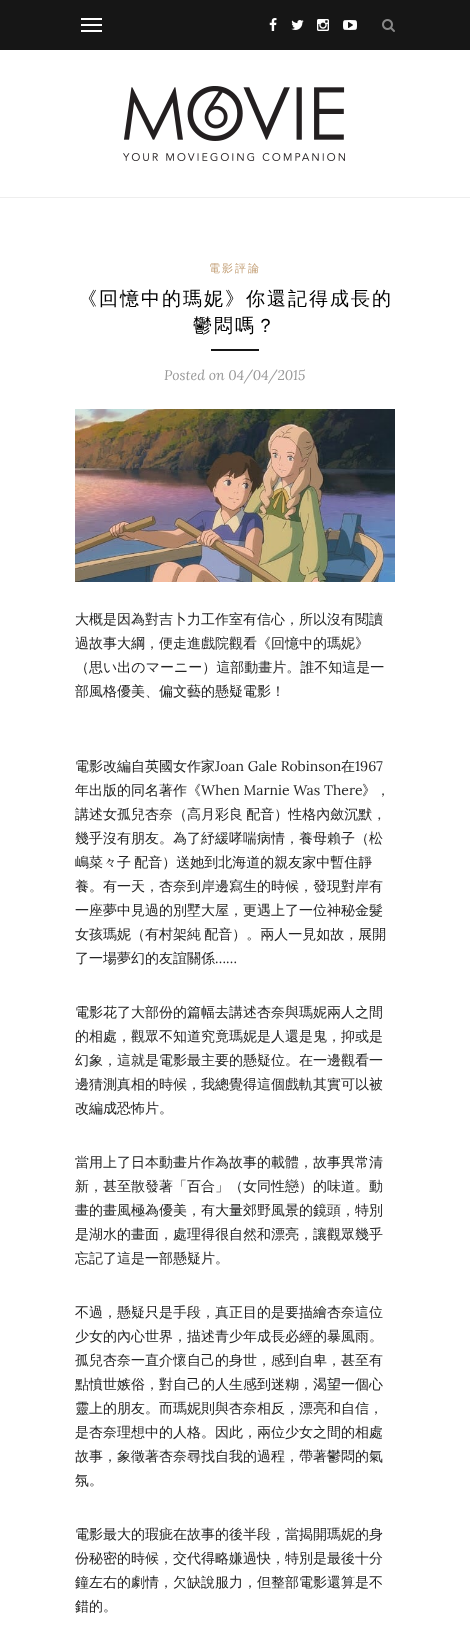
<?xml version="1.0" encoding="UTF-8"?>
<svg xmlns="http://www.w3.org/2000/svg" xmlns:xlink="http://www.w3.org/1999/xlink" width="470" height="1652">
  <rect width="100%" height="100%" fill="#ffffff" />
  <rect width="470" height="50" fill="#161616" />
  <rect x="81" y="18" width="21" height="2" fill="#ffffff" />
  <rect x="81" y="24" width="21" height="2" fill="#ffffff" />
  <rect x="81" y="30" width="21" height="2" fill="#ffffff" />
  <image x="269" y="18" width="8" height="13" xlink:href="image1.png" />
  <image x="291" y="20" width="13" height="10" xlink:href="image2.png" />
  <image x="317" y="19" width="12" height="12" xlink:href="image3.png" />
  <image x="343" y="20" width="14" height="10" xlink:href="image4.png" />
  <image x="382" y="19" width="13" height="13" xlink:href="image5.png" />
  <rect y="197" width="470" height="1" fill="#eeeeee" />
  <image x="123" y="86" width="222" height="75" xlink:href="image6.png" />
  <rect x="211" y="349" width="48" height="2" fill="#161616" />
  <image x="75" y="409" width="320" height="173" xlink:href="image7.png" />
  <text x="209" y="272" style="font-family: WenQuanYi Zen Hei; font-size: 11px; font-weight: 500; letter-spacing: 2px; fill: #c39f76">電影評論</text>
  <text x="78" y="305" style="font-family: WenQuanYi Zen Hei; font-size: 19px; font-weight: 500; letter-spacing: 2px; fill: #000000">《回憶中的瑪妮》你還記得成長的</text>
  <text x="193" y="332" style="font-family: WenQuanYi Zen Hei; font-size: 19px; font-weight: 500; letter-spacing: 2px; fill: #000000">鬱悶嗎？</text>
  <text x="164" y="380" style="font-family: Lora; font-size: 14px; font-style: italic; fill: #999999">Posted on 04/04/2015</text>
  <text x="75" y="624" style="font-family: WenQuanYi Zen Hei; font-size: 14px; font-weight: 500; fill: #242424">大概是因為對吉卜力工作室有信心，所以沒有閱讀</text>
  <text x="75" y="648" style="font-family: WenQuanYi Zen Hei; font-size: 14px; font-weight: 500; fill: #242424">過故事大綱，便走進戲院觀看《回憶中的瑪妮》</text>
  <text x="75" y="672" style="font-family: WenQuanYi Zen Hei; font-size: 14px; font-weight: 500; fill: #242424">（思い出のマーニー）這部動畫片。誰不知這是一</text>
  <text x="75" y="696" style="font-family: WenQuanYi Zen Hei; font-size: 14px; font-weight: 500; fill: #242424">部風格優美、偏文藝的懸疑電影！</text>
  <text x="75" y="771" style="font-family: WenQuanYi Zen Hei; font-size: 14px; font-weight: 500; fill: #242424">電影改編自英國女作家</text>
  <text x="215" y="771" style="font-family: Lora; font-size: 14px; fill: #242424">Joan Gale Robinson</text>
  <text x="341" y="771" style="font-family: WenQuanYi Zen Hei; font-size: 14px; font-weight: 500; fill: #242424">在</text>
  <text x="355" y="771" style="font-family: Lora; font-size: 14px; fill: #242424">1967</text>
  <text x="75" y="795" style="font-family: WenQuanYi Zen Hei; font-size: 14px; font-weight: 500; fill: #242424">年出版的同名著作《</text>
  <text x="201" y="795" style="font-family: Lora; font-size: 14px; fill: #242424">When Marnie Was There</text>
  <text x="362" y="795" style="font-family: WenQuanYi Zen Hei; font-size: 14px; font-weight: 500; fill: #242424">》，</text>
  <text x="75" y="819" word-spacing="-1" style="font-family: WenQuanYi Zen Hei; font-size: 14px; font-weight: 500; fill: #242424">講述女孤兒杏奈（高月彩良 配音）性格內斂沉默，</text>
  <text x="75" y="843" style="font-family: WenQuanYi Zen Hei; font-size: 14px; font-weight: 500; fill: #242424">幾乎沒有朋友。為了紓緩哮喘病情，養母賴子（松</text>
  <text x="75" y="867" word-spacing="-1" style="font-family: WenQuanYi Zen Hei; font-size: 14px; font-weight: 500; fill: #242424">嶋菜々子 配音）送她到北海道的親友家中暫住靜</text>
  <text x="75" y="891" style="font-family: WenQuanYi Zen Hei; font-size: 14px; font-weight: 500; fill: #242424">養。有一天，杏奈到岸邊寫生的時候，發現對岸有</text>
  <text x="75" y="915" style="font-family: WenQuanYi Zen Hei; font-size: 14px; font-weight: 500; fill: #242424">一座夢中見過的別墅大屋，更遇上了一位神秘金髮</text>
  <text x="75" y="939" word-spacing="-1" style="font-family: WenQuanYi Zen Hei; font-size: 14px; font-weight: 500; fill: #242424">女孩瑪妮（有村架純 配音）。兩人一見如故，展開</text>
  <text x="75" y="963" style="font-family: WenQuanYi Zen Hei; font-size: 14px; font-weight: 500; fill: #242424">了一場夢幻的友誼關係</text>
  <text x="215" y="963" style="font-family: Lora; font-size: 14px; fill: #242424">……</text>
  <text x="75" y="1017" style="font-family: WenQuanYi Zen Hei; font-size: 14px; font-weight: 500; fill: #242424">電影花了大部份的篇幅去講述杏奈與瑪妮兩人之間</text>
  <text x="75" y="1041" style="font-family: WenQuanYi Zen Hei; font-size: 14px; font-weight: 500; fill: #242424">的相處，觀眾不知道究竟瑪妮是人還是鬼，抑或是</text>
  <text x="75" y="1065" style="font-family: WenQuanYi Zen Hei; font-size: 14px; font-weight: 500; fill: #242424">幻象，這就是電影最主要的懸疑位。在一邊觀看一</text>
  <text x="75" y="1089" style="font-family: WenQuanYi Zen Hei; font-size: 14px; font-weight: 500; fill: #242424">邊猜測真相的時候，我總覺得這個戲軌其實可以被</text>
  <text x="75" y="1113" style="font-family: WenQuanYi Zen Hei; font-size: 14px; font-weight: 500; fill: #242424">改編成恐怖片。</text>
  <text x="75" y="1167" style="font-family: WenQuanYi Zen Hei; font-size: 14px; font-weight: 500; fill: #242424">當用上了日本動畫片作為故事的載體，故事異常清</text>
  <text x="75" y="1191" style="font-family: WenQuanYi Zen Hei; font-size: 14px; font-weight: 500; fill: #242424">新，甚至散發著「百合」（女同性戀）的味道。動</text>
  <text x="75" y="1215" style="font-family: WenQuanYi Zen Hei; font-size: 14px; font-weight: 500; fill: #242424">畫的畫風極為優美，有大量郊野風景的鏡頭，特別</text>
  <text x="75" y="1239" style="font-family: WenQuanYi Zen Hei; font-size: 14px; font-weight: 500; fill: #242424">是湖水的畫面，處理得很自然和漂亮，讓觀眾幾乎</text>
  <text x="75" y="1263" style="font-family: WenQuanYi Zen Hei; font-size: 14px; font-weight: 500; fill: #242424">忘記了這是一部懸疑片。</text>
  <text x="75" y="1317" style="font-family: WenQuanYi Zen Hei; font-size: 14px; font-weight: 500; fill: #242424">不過，懸疑只是手段，真正目的是要描繪杏奈這位</text>
  <text x="75" y="1341" style="font-family: WenQuanYi Zen Hei; font-size: 14px; font-weight: 500; fill: #242424">少女的內心世界，描述青少年成長必經的暴風雨。</text>
  <text x="75" y="1365" style="font-family: WenQuanYi Zen Hei; font-size: 14px; font-weight: 500; fill: #242424">孤兒杏奈一直介懷自己的身世，感到自卑，甚至有</text>
  <text x="75" y="1389" style="font-family: WenQuanYi Zen Hei; font-size: 14px; font-weight: 500; fill: #242424">點憤世嫉俗，對自己的人生感到迷糊，渴望一個心</text>
  <text x="75" y="1413" style="font-family: WenQuanYi Zen Hei; font-size: 14px; font-weight: 500; fill: #242424">靈上的朋友。而瑪妮則與杏奈相反，漂亮和自信，</text>
  <text x="75" y="1437" style="font-family: WenQuanYi Zen Hei; font-size: 14px; font-weight: 500; fill: #242424">是杏奈理想中的人格。因此，兩位少女之間的相處</text>
  <text x="75" y="1461" style="font-family: WenQuanYi Zen Hei; font-size: 14px; font-weight: 500; fill: #242424">故事，象徵著杏奈尋找自我的過程，帶著鬱悶的氣</text>
  <text x="75" y="1485" style="font-family: WenQuanYi Zen Hei; font-size: 14px; font-weight: 500; fill: #242424">氛。</text>
  <text x="75" y="1539" style="font-family: WenQuanYi Zen Hei; font-size: 14px; font-weight: 500; fill: #242424">電影最大的瑕疵在故事的後半段，當揭開瑪妮的身</text>
  <text x="75" y="1563" style="font-family: WenQuanYi Zen Hei; font-size: 14px; font-weight: 500; fill: #242424">份秘密的時候，交代得略嫌過快，特別是最後十分</text>
  <text x="75" y="1587" style="font-family: WenQuanYi Zen Hei; font-size: 14px; font-weight: 500; fill: #242424">鐘左右的劇情，欠缺說服力，但整部電影還算是不</text>
  <text x="75" y="1611" style="font-family: WenQuanYi Zen Hei; font-size: 14px; font-weight: 500; fill: #242424">錯的。</text>
</svg>
